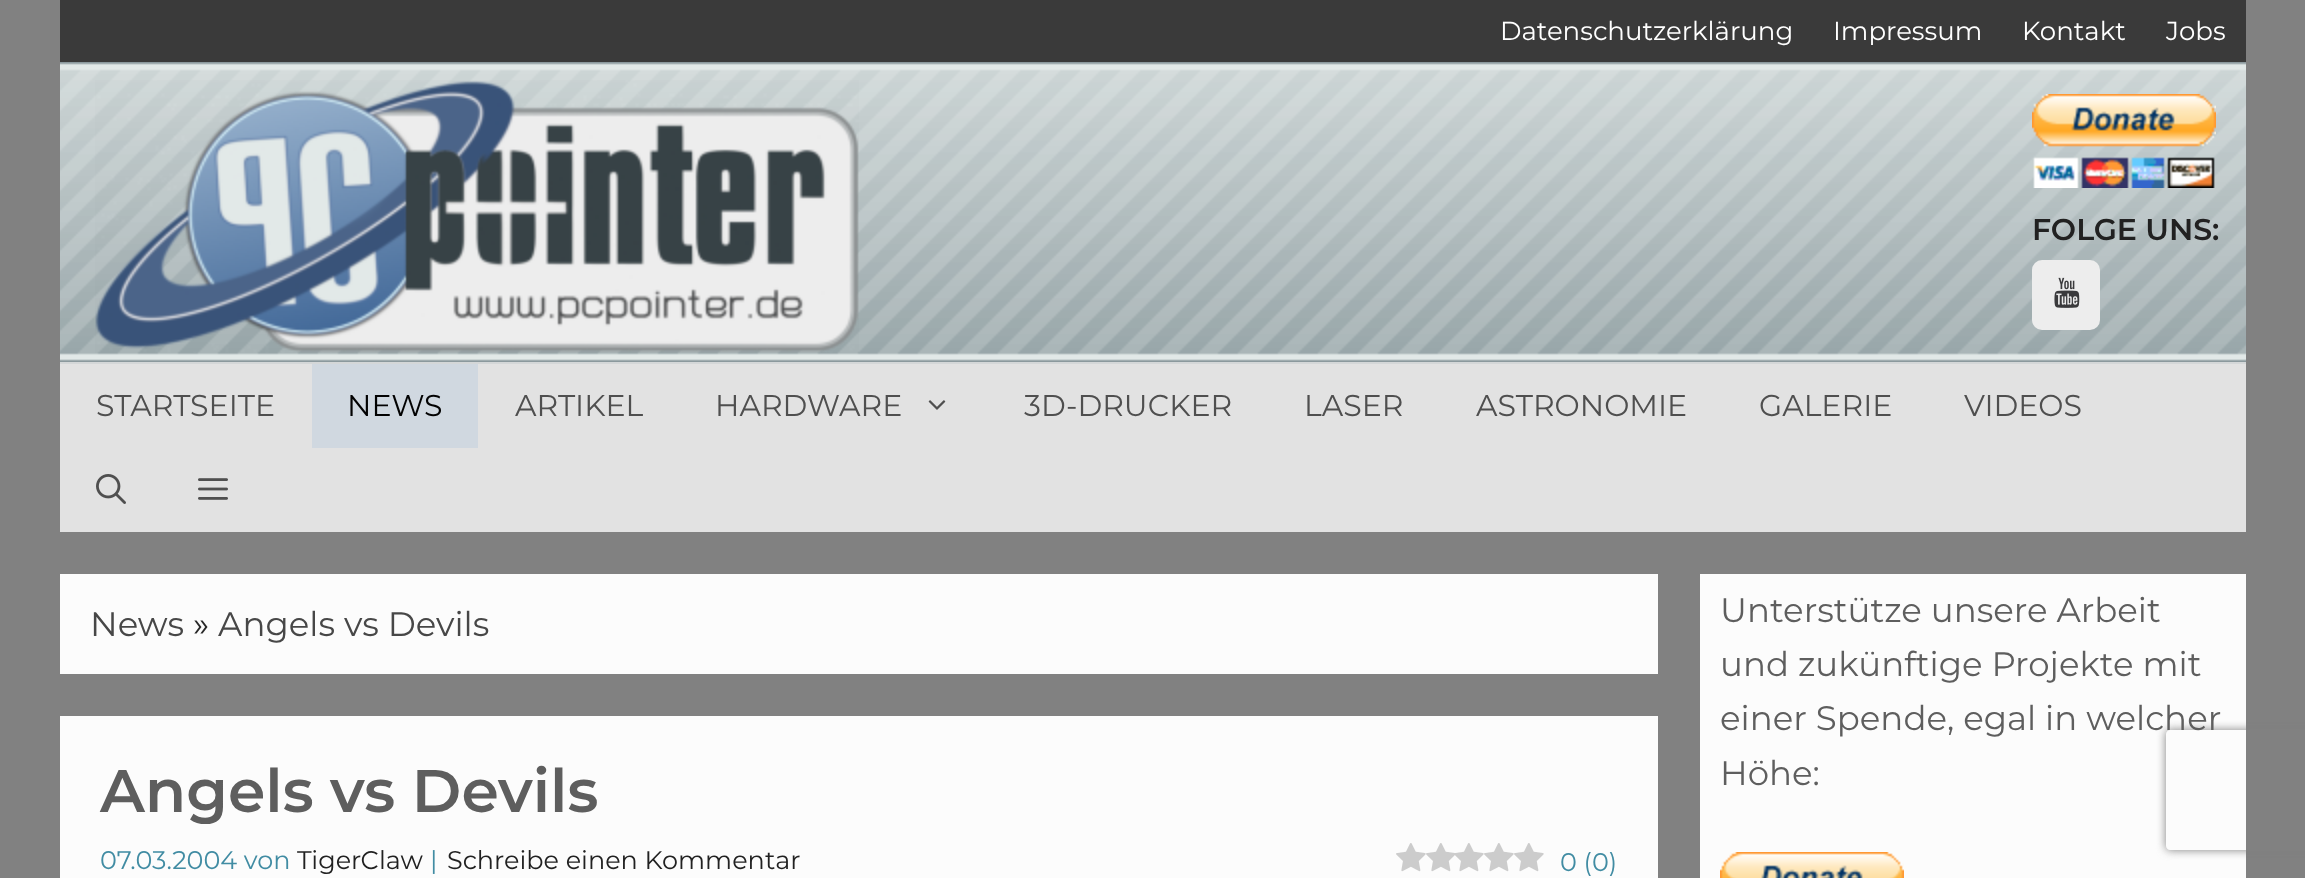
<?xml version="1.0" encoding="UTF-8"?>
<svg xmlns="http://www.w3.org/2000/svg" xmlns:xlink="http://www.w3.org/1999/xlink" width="2305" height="878">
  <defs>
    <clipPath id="clip1"><path d="M 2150 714 h 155 v 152 h -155 z m 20 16 h 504 c 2 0 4 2 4 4 v 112 c 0 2 -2 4 -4 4 h -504 c -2 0 -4 -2 -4 -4 v -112 c 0 -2 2 -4 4 -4 z" clip-rule="evenodd" /></clipPath>
  </defs>
  <rect width="100%" height="100%" fill="#818181" />
  <rect x="60" width="2186" height="62" fill="#3a3a3a" />
  <image x="60" y="62" width="2186" height="300" xlink:href="image1.png" />
  <image x="95" y="80" width="764" height="273" xlink:href="image2.png" />
  <image x="2032" y="94" width="184" height="94" xlink:href="image3.png" />
  <rect x="2032" y="260" width="68" height="70" rx="10" fill="#ededed" />
  <image x="2054" y="277" width="26" height="31" xlink:href="image4.png" />
  <rect x="60" y="364" width="2186" height="168" fill="#e2e2e2" />
  <rect x="60" y="362" width="2186" height="2" fill="#d4d7d8" />
  <rect x="312" y="364" width="166" height="84" fill="#d0d8e0" />
  <image x="928" y="400" width="18" height="10" xlink:href="image5.png" />
  <image x="96" y="474" width="30" height="30" xlink:href="image6.png" />
  <image x="198" y="478" width="30" height="22" xlink:href="image7.png" />
  <rect x="60" y="574" width="1598" height="100" fill="#fcfcfc" />
  <rect x="60" y="716" width="1598" height="162" fill="#fcfcfc" />
  <image x="1396" y="843" width="30" height="29" xlink:href="image8.png" />
  <image x="1426" y="843" width="29" height="29" xlink:href="image9.png" />
  <image x="1455" y="843" width="29" height="29" xlink:href="image10.png" />
  <image x="1484" y="843" width="30" height="29" xlink:href="image8.png" />
  <image x="1514" y="843" width="30" height="29" xlink:href="image8.png" />
  <rect x="1700" y="574" width="546" height="304" fill="#fcfcfc" />
  <image x="1720" y="852" width="184" height="26" xlink:href="image11.png" />
  <g clip-path="url(#clip1)">
    <rect x="2166" y="730" width="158" height="120" rx="4" fill="#808080" filter="blur(5px)" />
  </g>
  <text x="1500" y="40" style="font-family: Montserrat; font-size: 26px; fill: #ffffff">Datenschutzerklärung</text>
  <text x="1833" y="40" style="font-family: Montserrat; font-size: 26px; fill: #ffffff">Impressum</text>
  <text x="2022" y="40" style="font-family: Montserrat; font-size: 26px; fill: #ffffff">Kontakt</text>
  <text x="2166" y="40" style="font-family: Montserrat; font-size: 26px; fill: #ffffff">Jobs</text>
  <text x="2032" y="240" style="font-family: Montserrat; font-size: 30px; font-weight: 600; fill: #212121">FOLGE UNS:</text>
  <text x="96" y="416" style="font-family: Montserrat; font-size: 30px; fill: #4f4f4f">STARTSEITE</text>
  <text x="347" y="416" style="font-family: Montserrat; font-size: 30px; fill: #020202">NEWS</text>
  <text x="515" y="416" style="font-family: Montserrat; font-size: 30px; fill: #4f4f4f">ARTIKEL</text>
  <text x="715" y="416" style="font-family: Montserrat; font-size: 30px; fill: #4f4f4f">HARDWARE</text>
  <text x="1024" y="416" style="font-family: Montserrat; font-size: 30px; fill: #4f4f4f">3D-DRUCKER</text>
  <text x="1304" y="416" style="font-family: Montserrat; font-size: 30px; fill: #4f4f4f">LASER</text>
  <text x="1476" y="416" style="font-family: Montserrat; font-size: 30px; fill: #4f4f4f">ASTRONOMIE</text>
  <text x="1759" y="416" style="font-family: Montserrat; font-size: 30px; fill: #4f4f4f">GALERIE</text>
  <text x="1964" y="416" style="font-family: Montserrat; font-size: 30px; fill: #4f4f4f">VIDEOS</text>
  <text x="90" y="636" style="font-family: Montserrat; font-size: 34px; fill: #474747">News</text>
  <text x="193" y="636" style="font-family: Montserrat; font-size: 34px; fill: #282828">»</text>
  <text x="218" y="636" style="font-family: Montserrat; font-size: 34px; fill: #474747">Angels vs Devils</text>
  <text x="100" y="812" style="font-family: Montserrat; font-size: 60px; font-weight: 600; fill: #5e5e5e">Angels vs Devils</text>
  <text x="100" y="869" style="font-family: Montserrat; font-size: 25.5px; fill: #418ca3">07.03.2004 von</text>
  <text x="297" y="869" style="font-family: Montserrat; font-size: 25.5px; fill: #212121">TigerClaw</text>
  <text x="430" y="869" style="font-family: Montserrat; font-size: 25.5px; fill: #418ca3">|</text>
  <text x="447" y="869" style="font-family: Montserrat; font-size: 25.5px; fill: #212121">Schreibe einen Kommentar</text>
  <text x="1560" y="871" style="font-family: Montserrat; font-size: 25.5px; fill: #418ca3">0 (0)</text>
  <text x="1720" y="622" style="font-family: Montserrat; font-size: 34px; fill: #5e5e5e">Unterstütze unsere Arbeit</text>
  <text x="1720" y="676" style="font-family: Montserrat; font-size: 34px; fill: #5e5e5e">und zukünftige Projekte mit</text>
  <text x="1720" y="730" style="font-family: Montserrat; font-size: 34px; fill: #5e5e5e">einer Spende, egal in welcher</text>
  <text x="1720" y="785" style="font-family: Montserrat; font-size: 34px; fill: #5e5e5e">Höhe:</text>
</svg>
